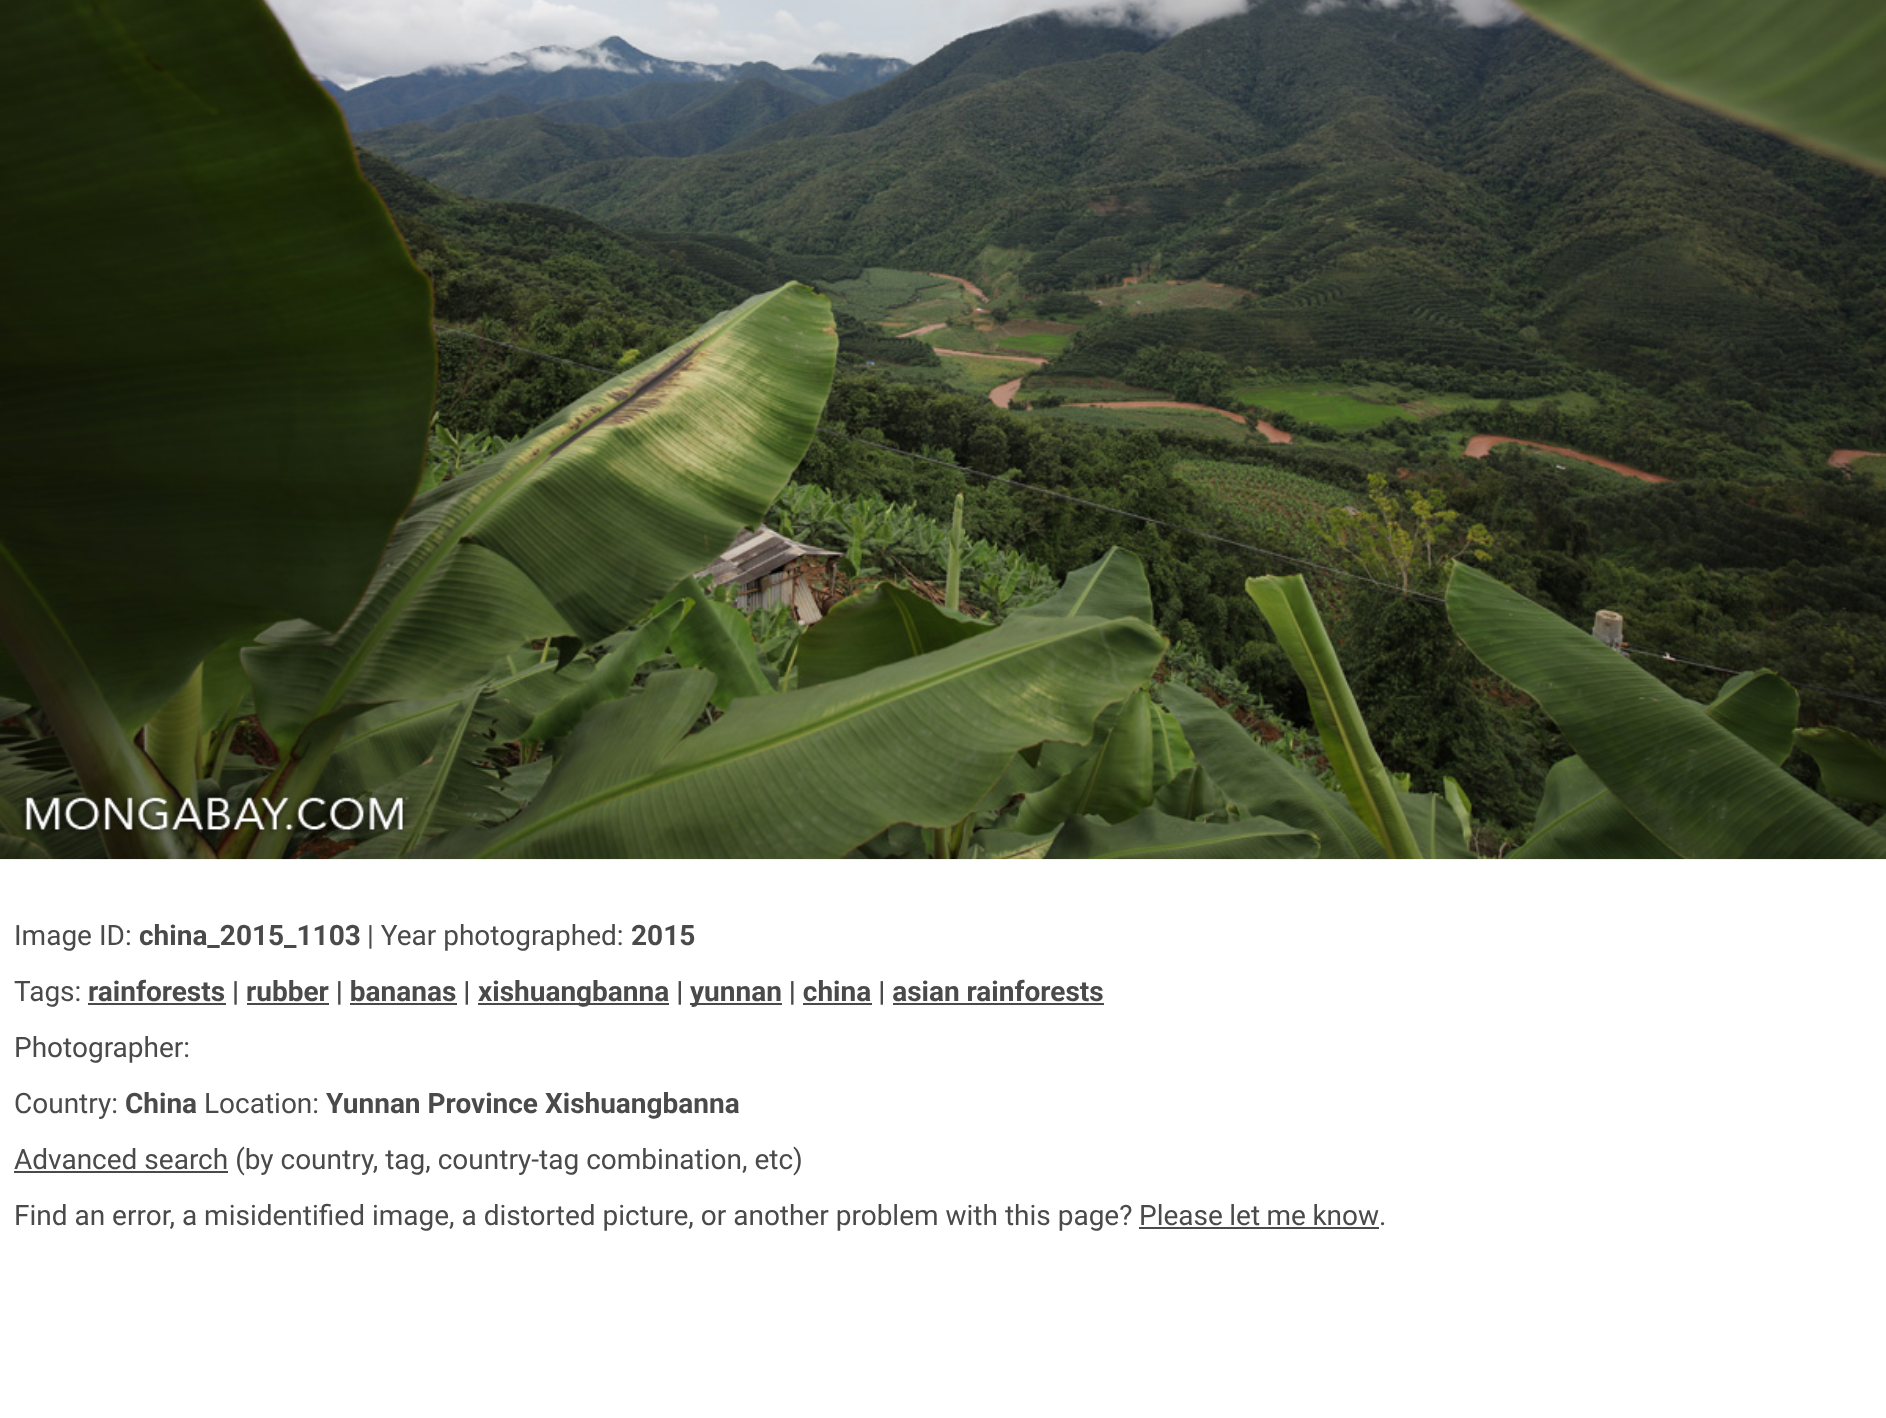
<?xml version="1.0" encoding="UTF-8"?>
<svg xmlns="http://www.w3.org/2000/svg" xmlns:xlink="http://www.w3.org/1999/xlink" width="1886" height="1418">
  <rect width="100%" height="100%" fill="#ffffff" />
  <image x="0" y="0" width="1886" height="860" xlink:href="image1.png" />
  <rect x="88" y="1003" width="138" height="2" fill="#4a4a4a" />
  <rect x="247" y="1003" width="82" height="2" fill="#4a4a4a" />
  <rect x="350" y="1003" width="107" height="2" fill="#4a4a4a" />
  <rect x="478" y="1003" width="191" height="2" fill="#4a4a4a" />
  <rect x="690" y="1003" width="92" height="2" fill="#4a4a4a" />
  <rect x="803" y="1003" width="69" height="2" fill="#4a4a4a" />
  <rect x="893" y="1003" width="211" height="2" fill="#4a4a4a" />
  <rect x="14" y="1171" width="214" height="2" fill="#4a4a4a" />
  <rect x="1139" y="1227" width="240" height="2" fill="#4a4a4a" />
  <text x="14" y="945" style="font-family: Roboto; font-size: 28px; fill: #4a4a4a">Image ID:</text>
  <text x="139" y="945" style="font-family: Roboto; font-size: 28px; font-weight: bold; fill: #4a4a4a">china_2015_1103</text>
  <text x="367" y="945" style="font-family: Roboto; font-size: 28px; fill: #4a4a4a">| Year photographed:</text>
  <text x="631" y="945" style="font-family: Roboto; font-size: 28px; font-weight: bold; fill: #4a4a4a">2015</text>
  <text x="14" y="1001" style="font-family: Roboto; font-size: 28px; fill: #4a4a4a">Tags:</text>
  <text x="88" y="1001" style="font-family: Roboto; font-size: 28px; font-weight: bold; fill: #4a4a4a">rainforests | rubber | bananas |</text>
  <text x="478" y="1001" style="font-family: Roboto; font-size: 28px; font-weight: bold; fill: #4a4a4a">xishuangbanna |</text>
  <text x="690" y="1001" style="font-family: Roboto; font-size: 28px; font-weight: bold; fill: #4a4a4a">yunnan | china | asian rainforests</text>
  <text x="14" y="1057" style="font-family: Roboto; font-size: 28px; fill: #4a4a4a">Photographer:</text>
  <text x="14" y="1113" style="font-family: Roboto; font-size: 28px; fill: #4a4a4a">Country:</text>
  <text x="125" y="1113" style="font-family: Roboto; font-size: 28px; font-weight: bold; fill: #4a4a4a">China</text>
  <text x="204" y="1113" style="font-family: Roboto; font-size: 28px; fill: #4a4a4a">Location:</text>
  <text x="326" y="1113" style="font-family: Roboto; font-size: 28px; font-weight: bold; fill: #4a4a4a">Yunnan Province Xishuangbanna</text>
  <text x="14" y="1169" style="font-family: Roboto; font-size: 28px; fill: #4a4a4a">Advanced search (by country, tag, country-tag combination, etc)</text>
  <text x="14" y="1225" style="font-family: Roboto; font-size: 28px; fill: #4a4a4a">Find an error, a misidentified image, a distorted picture, or another problem with this page?</text>
  <text x="1139" y="1225" word-spacing="-0.5" style="font-family: Roboto; font-size: 28px; fill: #4a4a4a">Please let me know</text>
  <text x="1379" y="1225" style="font-family: Roboto; font-size: 28px; fill: #4a4a4a">.</text>
</svg>
